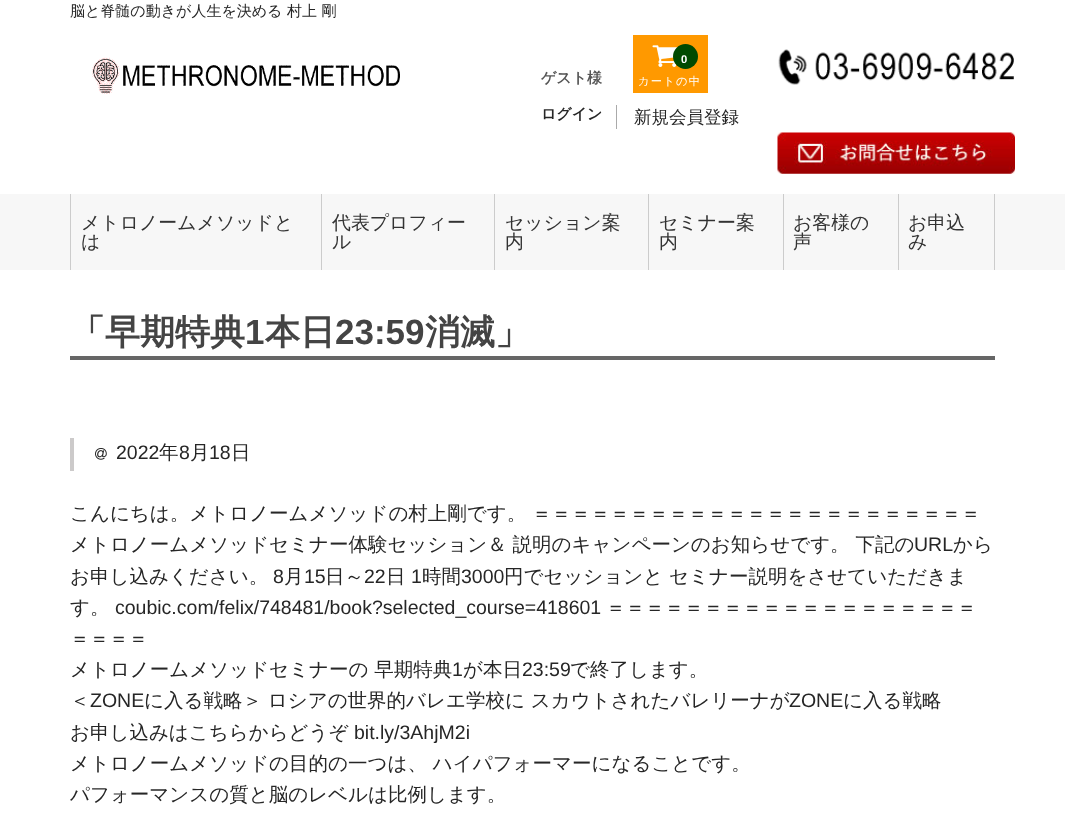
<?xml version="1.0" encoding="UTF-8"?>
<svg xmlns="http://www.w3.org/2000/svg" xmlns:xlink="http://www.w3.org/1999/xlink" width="1065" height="825">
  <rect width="100%" height="100%" fill="#ffffff" />
  <image x="92" y="57" width="308" height="37" xlink:href="image1.png" />
  <rect x="633" y="35" width="75" height="58" fill="#ff9900" />
  <image x="652" y="45" width="26" height="22" xlink:href="image2.png" />
  <circle cx="685.5" cy="56.5" r="12.5" fill="#004a00" />
  <rect x="616" y="105" width="1" height="24" fill="#aaaaaa" />
  <image x="778" y="49" width="236" height="36" xlink:href="image3.png" />
  <image x="777" y="132" width="238" height="42" xlink:href="image4.png" />
  <rect y="194" width="1065" height="76" fill="#f7f7f7" />
  <rect x="321" y="194" width="1" height="76" fill="#cccccc" />
  <rect x="70" y="194" width="1" height="76" fill="#cccccc" />
  <rect x="494" y="194" width="1" height="76" fill="#cccccc" />
  <rect x="648" y="194" width="1" height="76" fill="#cccccc" />
  <rect x="783" y="194" width="1" height="76" fill="#cccccc" />
  <rect x="898" y="194" width="1" height="76" fill="#cccccc" />
  <rect x="994" y="194" width="1" height="76" fill="#cccccc" />
  <rect x="70" y="356" width="925" height="4" fill="#666666" />
  <rect x="70" y="438" width="4" height="33" fill="#cccaca" />
  <image x="95" y="448" width="12" height="12" xlink:href="image5.png" />
  <text x="70" y="16" style="font-family: WenQuanYi Zen Hei; font-size: 15px; font-weight: 500; fill: #262626">脳と脊髄の動きが人生を決める 村上 剛</text>
  <text x="541" y="83" style="font-family: WenQuanYi Zen Hei; font-size: 15px; font-weight: bold; fill: #565656">ゲスト様</text>
  <text x="681" y="63" style="font-family: Liberation Sans; font-size: 11.25px; font-weight: bold; letter-spacing: 1.25px; fill: #ffffff">0</text>
  <text x="638" y="85" style="font-family: WenQuanYi Zen Hei; font-size: 11.25px; font-weight: 500; letter-spacing: 1.25px; fill: #ffffff">カートの中</text>
  <text x="541" y="119" style="font-family: WenQuanYi Zen Hei; font-size: 15px; font-weight: bold; fill: #262626">ログイン</text>
  <text x="634" y="123" style="font-family: WenQuanYi Zen Hei; font-size: 17.5px; font-weight: 500; fill: #262626">新規会員登録</text>
  <text x="81" y="229" style="font-family: WenQuanYi Zen Hei; font-size: 18.9px; font-weight: 500; fill: #333333">メトロノームメソッドと</text>
  <text x="81" y="248" style="font-family: WenQuanYi Zen Hei; font-size: 18.9px; font-weight: 500; fill: #333333">は</text>
  <text x="332" y="229" style="font-family: WenQuanYi Zen Hei; font-size: 18.9px; font-weight: 500; fill: #333333">代表プロフィー</text>
  <text x="332" y="248" style="font-family: WenQuanYi Zen Hei; font-size: 18.9px; font-weight: 500; fill: #333333">ル</text>
  <text x="505" y="229" style="font-family: WenQuanYi Zen Hei; font-size: 18.9px; font-weight: 500; fill: #333333">セッション案</text>
  <text x="505" y="248" style="font-family: WenQuanYi Zen Hei; font-size: 18.9px; font-weight: 500; fill: #333333">内</text>
  <text x="659" y="229" style="font-family: WenQuanYi Zen Hei; font-size: 18.9px; font-weight: 500; fill: #333333">セミナー案</text>
  <text x="659" y="248" style="font-family: WenQuanYi Zen Hei; font-size: 18.9px; font-weight: 500; fill: #333333">内</text>
  <text x="793" y="229" style="font-family: WenQuanYi Zen Hei; font-size: 18.9px; font-weight: 500; fill: #333333">お客様の</text>
  <text x="793" y="248" style="font-family: WenQuanYi Zen Hei; font-size: 18.9px; font-weight: 500; fill: #333333">声</text>
  <text x="908" y="229" style="font-family: WenQuanYi Zen Hei; font-size: 18.9px; font-weight: 500; fill: #333333">お申込</text>
  <text x="908" y="248" style="font-family: WenQuanYi Zen Hei; font-size: 18.9px; font-weight: 500; fill: #333333">み</text>
  <text x="70" y="344" style="font-family: WenQuanYi Zen Hei; font-size: 35px; font-weight: bold; fill: #444444">「早期特典</text>
  <text x="245" y="344" style="font-family: Liberation Sans; font-size: 35px; font-weight: bold; fill: #444444">1</text>
  <text x="265" y="344" style="font-family: WenQuanYi Zen Hei; font-size: 35px; font-weight: bold; fill: #444444">本日</text>
  <text x="335" y="344" style="font-family: Liberation Sans; font-size: 35px; font-weight: bold; fill: #444444">23:59</text>
  <text x="425" y="344" style="font-family: WenQuanYi Zen Hei; font-size: 35px; font-weight: bold; fill: #444444">消滅」</text>
  <text x="116" y="459" style="font-family: Liberation Sans; font-size: 19.5px; fill: #262626">2022</text>
  <text x="159" y="459" style="font-family: WenQuanYi Zen Hei; font-size: 19.5px; font-weight: 500; fill: #262626">年</text>
  <text x="179" y="459" style="font-family: Liberation Sans; font-size: 19.5px; fill: #262626">8</text>
  <text x="190" y="459" style="font-family: WenQuanYi Zen Hei; font-size: 19.5px; font-weight: 500; fill: #262626">月</text>
  <text x="209" y="459" style="font-family: Liberation Sans; font-size: 19.5px; fill: #262626">18</text>
  <text x="231" y="459" style="font-family: WenQuanYi Zen Hei; font-size: 19.5px; font-weight: 500; fill: #262626">日</text>
  <text x="70" y="520" style="font-family: WenQuanYi Zen Hei; font-size: 19.5px; font-weight: 500; fill: #262626">こんにちは。メトロノームメソッドの村上剛です。 ＝＝＝＝＝＝＝＝＝＝＝＝＝＝＝＝＝＝＝＝＝＝＝</text>
  <text x="70" y="551" style="font-family: WenQuanYi Zen Hei; font-size: 19.5px; font-weight: 500; fill: #262626">メトロノームメソッドセミナー体験セッション＆ 説明のキャンペーンのお知らせです。 下記の</text>
  <text x="914" y="551" style="font-family: Liberation Sans; font-size: 19.5px; fill: #262626">URL</text>
  <text x="953" y="551" style="font-family: WenQuanYi Zen Hei; font-size: 19.5px; font-weight: 500; fill: #262626">から</text>
  <text x="70" y="583" style="font-family: WenQuanYi Zen Hei; font-size: 19.5px; font-weight: 500; fill: #262626">お申し込みください。</text>
  <text x="273" y="583" style="font-family: Liberation Sans; font-size: 19.5px; fill: #262626">8</text>
  <text x="284" y="583" style="font-family: WenQuanYi Zen Hei; font-size: 19.5px; font-weight: 500; fill: #262626">月</text>
  <text x="304" y="583" style="font-family: Liberation Sans; font-size: 19.5px; fill: #262626">15</text>
  <text x="325" y="583" style="font-family: WenQuanYi Zen Hei; font-size: 19.5px; font-weight: 500; fill: #262626">日～</text>
  <text x="364" y="583" style="font-family: Liberation Sans; font-size: 19.5px; fill: #262626">22</text>
  <text x="386" y="583" style="font-family: WenQuanYi Zen Hei; font-size: 19.5px; font-weight: 500; fill: #262626">日</text>
  <text x="411" y="583" style="font-family: Liberation Sans; font-size: 19.5px; fill: #262626">1</text>
  <text x="422" y="583" style="font-family: WenQuanYi Zen Hei; font-size: 19.5px; font-weight: 500; fill: #262626">時間</text>
  <text x="461" y="583" style="font-family: Liberation Sans; font-size: 19.5px; fill: #262626">3000</text>
  <text x="504" y="583" style="font-family: WenQuanYi Zen Hei; font-size: 19.5px; font-weight: 500; fill: #262626">円でセッションと セミナー説明をさせていただきま</text>
  <text x="70" y="614" style="font-family: WenQuanYi Zen Hei; font-size: 19.5px; font-weight: 500; fill: #262626">す。</text>
  <text x="115" y="614" style="font-family: Liberation Sans; font-size: 19.5px; fill: #262626">coubic.com/felix/748481/book?selected_course=418601</text>
  <text x="606" y="614" style="font-family: WenQuanYi Zen Hei; font-size: 19.5px; font-weight: 500; fill: #262626">＝＝＝＝＝＝＝＝＝＝＝＝＝＝＝＝＝＝＝</text>
  <text x="70" y="645" style="font-family: WenQuanYi Zen Hei; font-size: 19.5px; font-weight: 500; fill: #262626">＝＝＝＝</text>
  <text x="70" y="676" style="font-family: WenQuanYi Zen Hei; font-size: 19.5px; font-weight: 500; fill: #262626">メトロノームメソッドセミナーの 早期特典</text>
  <text x="452" y="676" style="font-family: Liberation Sans; font-size: 19.5px; fill: #262626">1</text>
  <text x="463" y="676" style="font-family: WenQuanYi Zen Hei; font-size: 19.5px; font-weight: 500; fill: #262626">が本日</text>
  <text x="522" y="676" style="font-family: Liberation Sans; font-size: 19.5px; fill: #262626">23:59</text>
  <text x="570" y="676" style="font-family: WenQuanYi Zen Hei; font-size: 19.5px; font-weight: 500; fill: #262626">で終了します。</text>
  <text x="70" y="707" style="font-family: WenQuanYi Zen Hei; font-size: 19.5px; font-weight: 500; fill: #262626">＜</text>
  <text x="90" y="707" style="font-family: Liberation Sans; font-size: 19.5px; fill: #262626">ZONE</text>
  <text x="144" y="707" style="font-family: WenQuanYi Zen Hei; font-size: 19.5px; font-weight: 500; fill: #262626">に入る戦略＞ ロシアの世界的バレエ学校に スカウトされたバレリーナが</text>
  <text x="789" y="707" style="font-family: Liberation Sans; font-size: 19.5px; fill: #262626">ZONE</text>
  <text x="843" y="707" style="font-family: WenQuanYi Zen Hei; font-size: 19.5px; font-weight: 500; fill: #262626">に入る戦略</text>
  <text x="70" y="739" style="font-family: WenQuanYi Zen Hei; font-size: 19.5px; font-weight: 500; fill: #262626">お申し込みはこちらからどうぞ</text>
  <text x="354" y="739" style="font-family: Liberation Sans; font-size: 19.5px; fill: #262626">bit.ly/3AhjM2i</text>
  <text x="70" y="770" style="font-family: WenQuanYi Zen Hei; font-size: 19.5px; font-weight: 500; fill: #262626">メトロノームメソッドの目的の一つは、 ハイパフォーマーになることです。</text>
  <text x="70" y="801" style="font-family: WenQuanYi Zen Hei; font-size: 19.5px; font-weight: 500; fill: #262626">パフォーマンスの質と脳のレベルは比例します。</text>
</svg>
